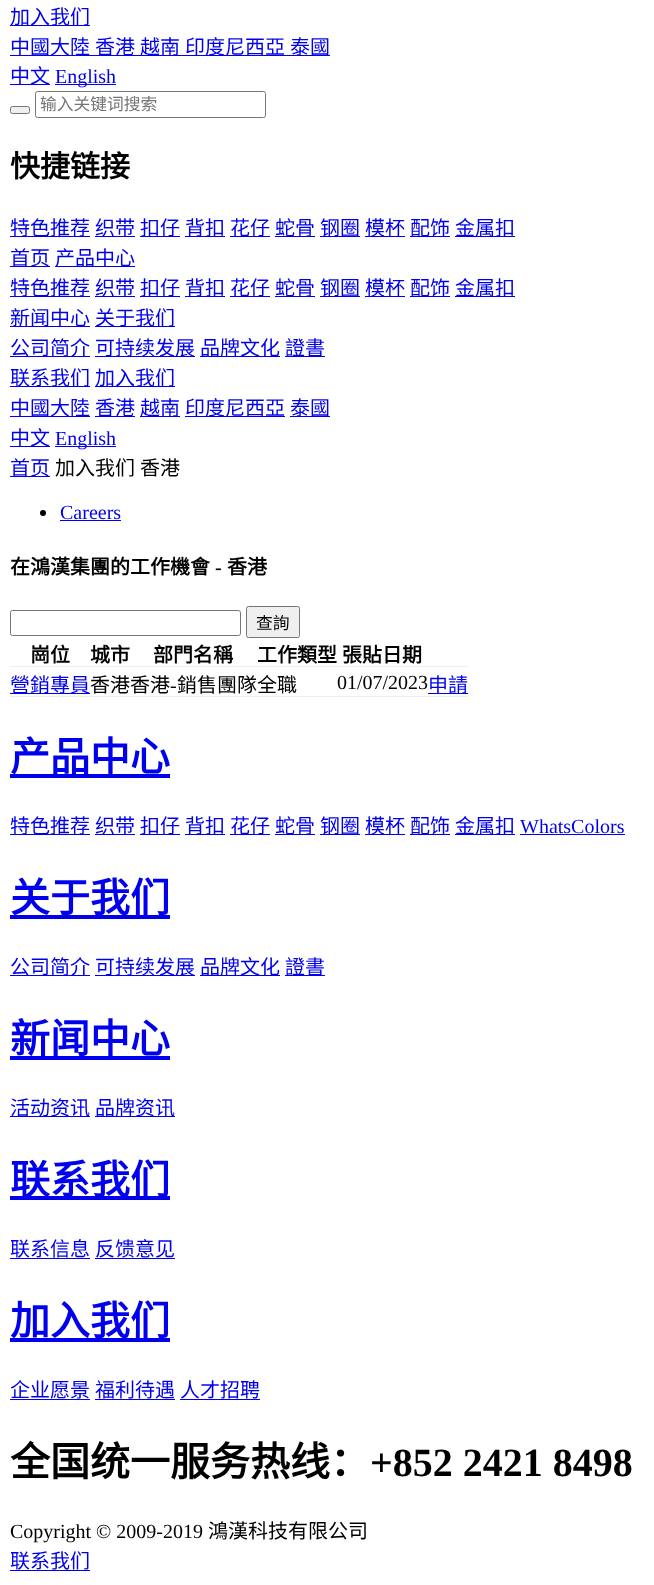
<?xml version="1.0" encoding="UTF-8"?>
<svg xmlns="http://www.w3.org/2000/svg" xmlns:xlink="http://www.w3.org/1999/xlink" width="654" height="1585">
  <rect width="100%" height="100%" fill="#ffffff" />
  <rect x="10" y="25" width="80" height="1" fill="#0000ee" />
  <rect x="10" y="55" width="320" height="1" fill="#0000ee" />
  <rect x="10" y="84" width="40" height="1" fill="#0000ee" />
  <rect x="55" y="84" width="61" height="1" fill="#0000ee" />
  <rect x="10.5" y="106.5" width="19" height="7" rx="2" fill="#efefef" stroke="#767676" />
  <rect x="35.5" y="91.5" width="230" height="26" rx="2" fill="none" stroke="#767676" />
  <rect x="10" y="236" width="80" height="1" fill="#0000ee" />
  <rect x="95" y="236" width="40" height="1" fill="#0000ee" />
  <rect x="140" y="236" width="40" height="1" fill="#0000ee" />
  <rect x="185" y="236" width="40" height="1" fill="#0000ee" />
  <rect x="230" y="236" width="40" height="1" fill="#0000ee" />
  <rect x="275" y="236" width="40" height="1" fill="#0000ee" />
  <rect x="320" y="236" width="40" height="1" fill="#0000ee" />
  <rect x="365" y="236" width="40" height="1" fill="#0000ee" />
  <rect x="410" y="236" width="40" height="1" fill="#0000ee" />
  <rect x="455" y="236" width="60" height="1" fill="#0000ee" />
  <rect x="10" y="266" width="40" height="1" fill="#0000ee" />
  <rect x="55" y="266" width="80" height="1" fill="#0000ee" />
  <rect x="10" y="296" width="80" height="1" fill="#0000ee" />
  <rect x="95" y="296" width="40" height="1" fill="#0000ee" />
  <rect x="140" y="296" width="40" height="1" fill="#0000ee" />
  <rect x="185" y="296" width="40" height="1" fill="#0000ee" />
  <rect x="230" y="296" width="40" height="1" fill="#0000ee" />
  <rect x="275" y="296" width="40" height="1" fill="#0000ee" />
  <rect x="320" y="296" width="40" height="1" fill="#0000ee" />
  <rect x="365" y="296" width="40" height="1" fill="#0000ee" />
  <rect x="410" y="296" width="40" height="1" fill="#0000ee" />
  <rect x="455" y="296" width="60" height="1" fill="#0000ee" />
  <rect x="10" y="326" width="80" height="1" fill="#0000ee" />
  <rect x="95" y="326" width="80" height="1" fill="#0000ee" />
  <rect x="10" y="356" width="80" height="1" fill="#0000ee" />
  <rect x="95" y="356" width="100" height="1" fill="#0000ee" />
  <rect x="200" y="356" width="80" height="1" fill="#0000ee" />
  <rect x="285" y="356" width="40" height="1" fill="#0000ee" />
  <rect x="10" y="386" width="80" height="1" fill="#0000ee" />
  <rect x="95" y="386" width="80" height="1" fill="#0000ee" />
  <rect x="10" y="416" width="80" height="1" fill="#0000ee" />
  <rect x="95" y="416" width="40" height="1" fill="#0000ee" />
  <rect x="140" y="416" width="40" height="1" fill="#0000ee" />
  <rect x="185" y="416" width="100" height="1" fill="#0000ee" />
  <rect x="290" y="416" width="40" height="1" fill="#0000ee" />
  <rect x="10" y="446" width="40" height="1" fill="#0000ee" />
  <rect x="55" y="446" width="61" height="1" fill="#0000ee" />
  <rect x="10" y="476" width="40" height="1" fill="#0000ee" />
  <circle cx="43" cy="513" r="3" fill="#000000" />
  <rect x="60" y="520" width="61" height="1" fill="#0000ee" />
  <rect x="10.5" y="610.5" width="230" height="25" rx="2" fill="none" stroke="#767676" />
  <rect x="246.5" y="606.5" width="53" height="31" rx="2" fill="#efefef" stroke="#767676" />
  <rect x="10" y="666" width="458" height="1" fill="#eeeeee" />
  <rect x="10" y="696" width="458" height="1" fill="#eeeeee" />
  <rect x="10" y="693" width="80" height="1" fill="#0000ee" />
  <rect x="428" y="693" width="40" height="1" fill="#0000ee" />
  <rect x="10" y="774" width="160" height="4" fill="#0000ee" />
  <rect x="10" y="834" width="80" height="1" fill="#0000ee" />
  <rect x="95" y="834" width="40" height="1" fill="#0000ee" />
  <rect x="140" y="834" width="40" height="1" fill="#0000ee" />
  <rect x="185" y="834" width="40" height="1" fill="#0000ee" />
  <rect x="230" y="834" width="40" height="1" fill="#0000ee" />
  <rect x="275" y="834" width="40" height="1" fill="#0000ee" />
  <rect x="320" y="834" width="40" height="1" fill="#0000ee" />
  <rect x="365" y="834" width="40" height="1" fill="#0000ee" />
  <rect x="410" y="834" width="40" height="1" fill="#0000ee" />
  <rect x="455" y="834" width="60" height="1" fill="#0000ee" />
  <rect x="520" y="834" width="105" height="1" fill="#0000ee" />
  <rect x="10" y="915" width="160" height="4" fill="#0000ee" />
  <rect x="10" y="975" width="80" height="1" fill="#0000ee" />
  <rect x="95" y="975" width="100" height="1" fill="#0000ee" />
  <rect x="200" y="975" width="80" height="1" fill="#0000ee" />
  <rect x="285" y="975" width="40" height="1" fill="#0000ee" />
  <rect x="10" y="1056" width="160" height="4" fill="#0000ee" />
  <rect x="10" y="1116" width="80" height="1" fill="#0000ee" />
  <rect x="95" y="1116" width="80" height="1" fill="#0000ee" />
  <rect x="10" y="1196" width="160" height="4" fill="#0000ee" />
  <rect x="10" y="1258" width="80" height="1" fill="#0000ee" />
  <rect x="95" y="1258" width="80" height="1" fill="#0000ee" />
  <rect x="10" y="1338" width="160" height="4" fill="#0000ee" />
  <rect x="10" y="1399" width="80" height="1" fill="#0000ee" />
  <rect x="95" y="1399" width="80" height="1" fill="#0000ee" />
  <rect x="180" y="1399" width="80" height="1" fill="#0000ee" />
  <rect x="10" y="1570" width="80" height="1" fill="#0000ee" />
  <text x="10" y="24" style="font-family: Noto Sans CJK SC; font-size: 20px; fill: #0000ee">加入我们</text>
  <text x="10" y="54" style="font-family: Noto Sans CJK SC; font-size: 20px; fill: #0000ee">中國大陸</text>
  <text x="95" y="54" style="font-family: Noto Sans CJK SC; font-size: 20px; fill: #0000ee">香港</text>
  <text x="140" y="54" style="font-family: Noto Sans CJK SC; font-size: 20px; fill: #0000ee">越南</text>
  <text x="185" y="54" style="font-family: Noto Sans CJK SC; font-size: 20px; fill: #0000ee">印度尼西亞</text>
  <text x="290" y="54" style="font-family: Noto Sans CJK SC; font-size: 20px; fill: #0000ee">泰國</text>
  <text x="10" y="83" style="font-family: Noto Sans CJK SC; font-size: 20px; fill: #0000ee">中文</text>
  <text x="55" y="83" style="font-family: Liberation Serif; font-size: 20px; fill: #0000ee">English</text>
  <text x="40" y="110" style="font-family: Noto Sans CJK SC; font-size: 16.75px; fill: #757575">输入关键词搜索</text>
  <text x="10" y="177" style="font-family: Noto Sans CJK SC; font-size: 30px; font-weight: bold; fill: #000000">快捷链接</text>
  <text x="10" y="235" style="font-family: Noto Sans CJK SC; font-size: 20px; fill: #0000ee">特色推荐</text>
  <text x="95" y="235" style="font-family: Noto Sans CJK SC; font-size: 20px; fill: #0000ee">织带</text>
  <text x="140" y="235" style="font-family: Noto Sans CJK SC; font-size: 20px; fill: #0000ee">扣仔</text>
  <text x="185" y="235" style="font-family: Noto Sans CJK SC; font-size: 20px; fill: #0000ee">背扣</text>
  <text x="230" y="235" style="font-family: Noto Sans CJK SC; font-size: 20px; fill: #0000ee">花仔</text>
  <text x="275" y="235" style="font-family: Noto Sans CJK SC; font-size: 20px; fill: #0000ee">蛇骨</text>
  <text x="320" y="235" style="font-family: Noto Sans CJK SC; font-size: 20px; fill: #0000ee">钢圈</text>
  <text x="365" y="235" style="font-family: Noto Sans CJK SC; font-size: 20px; fill: #0000ee">模杯</text>
  <text x="410" y="235" style="font-family: Noto Sans CJK SC; font-size: 20px; fill: #0000ee">配饰</text>
  <text x="455" y="235" style="font-family: Noto Sans CJK SC; font-size: 20px; fill: #0000ee">金属扣</text>
  <text x="10" y="265" style="font-family: Noto Sans CJK SC; font-size: 20px; fill: #0000ee">首页</text>
  <text x="55" y="265" style="font-family: Noto Sans CJK SC; font-size: 20px; fill: #0000ee">产品中心</text>
  <text x="10" y="295" style="font-family: Noto Sans CJK SC; font-size: 20px; fill: #0000ee">特色推荐</text>
  <text x="95" y="295" style="font-family: Noto Sans CJK SC; font-size: 20px; fill: #0000ee">织带</text>
  <text x="140" y="295" style="font-family: Noto Sans CJK SC; font-size: 20px; fill: #0000ee">扣仔</text>
  <text x="185" y="295" style="font-family: Noto Sans CJK SC; font-size: 20px; fill: #0000ee">背扣</text>
  <text x="230" y="295" style="font-family: Noto Sans CJK SC; font-size: 20px; fill: #0000ee">花仔</text>
  <text x="275" y="295" style="font-family: Noto Sans CJK SC; font-size: 20px; fill: #0000ee">蛇骨</text>
  <text x="320" y="295" style="font-family: Noto Sans CJK SC; font-size: 20px; fill: #0000ee">钢圈</text>
  <text x="365" y="295" style="font-family: Noto Sans CJK SC; font-size: 20px; fill: #0000ee">模杯</text>
  <text x="410" y="295" style="font-family: Noto Sans CJK SC; font-size: 20px; fill: #0000ee">配饰</text>
  <text x="455" y="295" style="font-family: Noto Sans CJK SC; font-size: 20px; fill: #0000ee">金属扣</text>
  <text x="10" y="325" style="font-family: Noto Sans CJK SC; font-size: 20px; fill: #0000ee">新闻中心</text>
  <text x="95" y="325" style="font-family: Noto Sans CJK SC; font-size: 20px; fill: #0000ee">关于我们</text>
  <text x="10" y="355" style="font-family: Noto Sans CJK SC; font-size: 20px; fill: #0000ee">公司简介</text>
  <text x="95" y="355" style="font-family: Noto Sans CJK SC; font-size: 20px; fill: #0000ee">可持续发展</text>
  <text x="200" y="355" style="font-family: Noto Sans CJK SC; font-size: 20px; fill: #0000ee">品牌文化</text>
  <text x="285" y="355" style="font-family: Noto Sans CJK SC; font-size: 20px; fill: #0000ee">證書</text>
  <text x="10" y="385" style="font-family: Noto Sans CJK SC; font-size: 20px; fill: #0000ee">联系我们</text>
  <text x="95" y="385" style="font-family: Noto Sans CJK SC; font-size: 20px; fill: #0000ee">加入我们</text>
  <text x="10" y="415" style="font-family: Noto Sans CJK SC; font-size: 20px; fill: #0000ee">中國大陸</text>
  <text x="95" y="415" style="font-family: Noto Sans CJK SC; font-size: 20px; fill: #0000ee">香港</text>
  <text x="140" y="415" style="font-family: Noto Sans CJK SC; font-size: 20px; fill: #0000ee">越南</text>
  <text x="185" y="415" style="font-family: Noto Sans CJK SC; font-size: 20px; fill: #0000ee">印度尼西亞</text>
  <text x="290" y="415" style="font-family: Noto Sans CJK SC; font-size: 20px; fill: #0000ee">泰國</text>
  <text x="10" y="445" style="font-family: Noto Sans CJK SC; font-size: 20px; fill: #0000ee">中文</text>
  <text x="55" y="445" style="font-family: Liberation Serif; font-size: 20px; fill: #0000ee">English</text>
  <text x="10" y="475" style="font-family: Noto Sans CJK SC; font-size: 20px; fill: #0000ee">首页</text>
  <text x="55" y="475" style="font-family: Noto Sans CJK SC; font-size: 20px; fill: #000000">加入我们</text>
  <text x="140" y="475" style="font-family: Noto Sans CJK SC; font-size: 20px; fill: #000000">香港</text>
  <text x="60" y="519" style="font-family: Liberation Serif; font-size: 20px; fill: #0000ee">Careers</text>
  <text x="10" y="574" style="font-family: Noto Sans CJK SC; font-size: 20px; font-weight: bold; fill: #000000">在鴻漢集團的工作機會</text>
  <text x="215" y="574" style="font-family: Liberation Serif; font-size: 20px; font-weight: bold; fill: #000000">-</text>
  <text x="227" y="574" style="font-family: Noto Sans CJK SC; font-size: 20px; font-weight: bold; fill: #000000">香港</text>
  <text x="256" y="629" style="font-family: Noto Sans CJK SC; font-size: 16.75px; fill: #000000">查詢</text>
  <text x="30" y="662" style="font-family: Noto Sans CJK SC; font-size: 20px; font-weight: bold; fill: #000000">崗位</text>
  <text x="90" y="662" style="font-family: Noto Sans CJK SC; font-size: 20px; font-weight: bold; fill: #000000">城市</text>
  <text x="153" y="662" style="font-family: Noto Sans CJK SC; font-size: 20px; font-weight: bold; fill: #000000">部門名稱</text>
  <text x="257" y="662" style="font-family: Noto Sans CJK SC; font-size: 20px; font-weight: bold; fill: #000000">工作類型</text>
  <text x="342" y="662" style="font-family: Noto Sans CJK SC; font-size: 20px; font-weight: bold; fill: #000000">張貼日期</text>
  <text x="10" y="692" style="font-family: Noto Sans CJK SC; font-size: 20px; fill: #0000ee">營銷專員</text>
  <text x="90" y="692" style="font-family: Noto Sans CJK SC; font-size: 20px; fill: #000000">香港香港</text>
  <text x="170" y="692" style="font-family: Liberation Serif; font-size: 20px; fill: #000000">-</text>
  <text x="177" y="692" style="font-family: Noto Sans CJK SC; font-size: 20px; fill: #000000">銷售團隊全職</text>
  <text x="337" y="689" style="font-family: Liberation Serif; font-size: 20px; fill: #000000">01/07/2023</text>
  <text x="428" y="692" style="font-family: Noto Sans CJK SC; font-size: 20px; fill: #0000ee">申請</text>
  <text x="10" y="771" style="font-family: Noto Sans CJK SC; font-size: 40px; font-weight: bold; fill: #0000ee">产品中心</text>
  <text x="10" y="833" style="font-family: Noto Sans CJK SC; font-size: 20px; fill: #0000ee">特色推荐</text>
  <text x="95" y="833" style="font-family: Noto Sans CJK SC; font-size: 20px; fill: #0000ee">织带</text>
  <text x="140" y="833" style="font-family: Noto Sans CJK SC; font-size: 20px; fill: #0000ee">扣仔</text>
  <text x="185" y="833" style="font-family: Noto Sans CJK SC; font-size: 20px; fill: #0000ee">背扣</text>
  <text x="230" y="833" style="font-family: Noto Sans CJK SC; font-size: 20px; fill: #0000ee">花仔</text>
  <text x="275" y="833" style="font-family: Noto Sans CJK SC; font-size: 20px; fill: #0000ee">蛇骨</text>
  <text x="320" y="833" style="font-family: Noto Sans CJK SC; font-size: 20px; fill: #0000ee">钢圈</text>
  <text x="365" y="833" style="font-family: Noto Sans CJK SC; font-size: 20px; fill: #0000ee">模杯</text>
  <text x="410" y="833" style="font-family: Noto Sans CJK SC; font-size: 20px; fill: #0000ee">配饰</text>
  <text x="455" y="833" style="font-family: Noto Sans CJK SC; font-size: 20px; fill: #0000ee">金属扣</text>
  <text x="520" y="833" style="font-family: Liberation Serif; font-size: 20px; fill: #0000ee">WhatsColors</text>
  <text x="10" y="912" style="font-family: Noto Sans CJK SC; font-size: 40px; font-weight: bold; fill: #0000ee">关于我们</text>
  <text x="10" y="974" style="font-family: Noto Sans CJK SC; font-size: 20px; fill: #0000ee">公司简介</text>
  <text x="95" y="974" style="font-family: Noto Sans CJK SC; font-size: 20px; fill: #0000ee">可持续发展</text>
  <text x="200" y="974" style="font-family: Noto Sans CJK SC; font-size: 20px; fill: #0000ee">品牌文化</text>
  <text x="285" y="974" style="font-family: Noto Sans CJK SC; font-size: 20px; fill: #0000ee">證書</text>
  <text x="10" y="1053" style="font-family: Noto Sans CJK SC; font-size: 40px; font-weight: bold; fill: #0000ee">新闻中心</text>
  <text x="10" y="1115" style="font-family: Noto Sans CJK SC; font-size: 20px; fill: #0000ee">活动资讯</text>
  <text x="95" y="1115" style="font-family: Noto Sans CJK SC; font-size: 20px; fill: #0000ee">品牌资讯</text>
  <text x="10" y="1194" style="font-family: Noto Sans CJK SC; font-size: 40px; font-weight: bold; fill: #0000ee">联系我们</text>
  <text x="10" y="1256" style="font-family: Noto Sans CJK SC; font-size: 20px; fill: #0000ee">联系信息</text>
  <text x="95" y="1256" style="font-family: Noto Sans CJK SC; font-size: 20px; fill: #0000ee">反馈意见</text>
  <text x="10" y="1335" style="font-family: Noto Sans CJK SC; font-size: 40px; font-weight: bold; fill: #0000ee">加入我们</text>
  <text x="10" y="1397" style="font-family: Noto Sans CJK SC; font-size: 20px; fill: #0000ee">企业愿景</text>
  <text x="95" y="1397" style="font-family: Noto Sans CJK SC; font-size: 20px; fill: #0000ee">福利待遇</text>
  <text x="180" y="1397" style="font-family: Noto Sans CJK SC; font-size: 20px; fill: #0000ee">人才招聘</text>
  <text x="10" y="1476" style="font-family: Noto Sans CJK SC; font-size: 40px; font-weight: bold; fill: #000000">全国统一服务热线：</text>
  <text x="370" y="1476" style="font-family: Liberation Serif; font-size: 40px; font-weight: bold; fill: #000000">+852 2421 8498</text>
  <text x="10" y="1538" style="font-family: Liberation Serif; font-size: 20px; fill: #000000">Copyright © 2009-2019</text>
  <text x="208" y="1538" style="font-family: Noto Sans CJK SC; font-size: 20px; fill: #000000">鴻漢科技有限公司</text>
  <text x="10" y="1568" style="font-family: Noto Sans CJK SC; font-size: 20px; fill: #0000ee">联系我们</text>
</svg>
